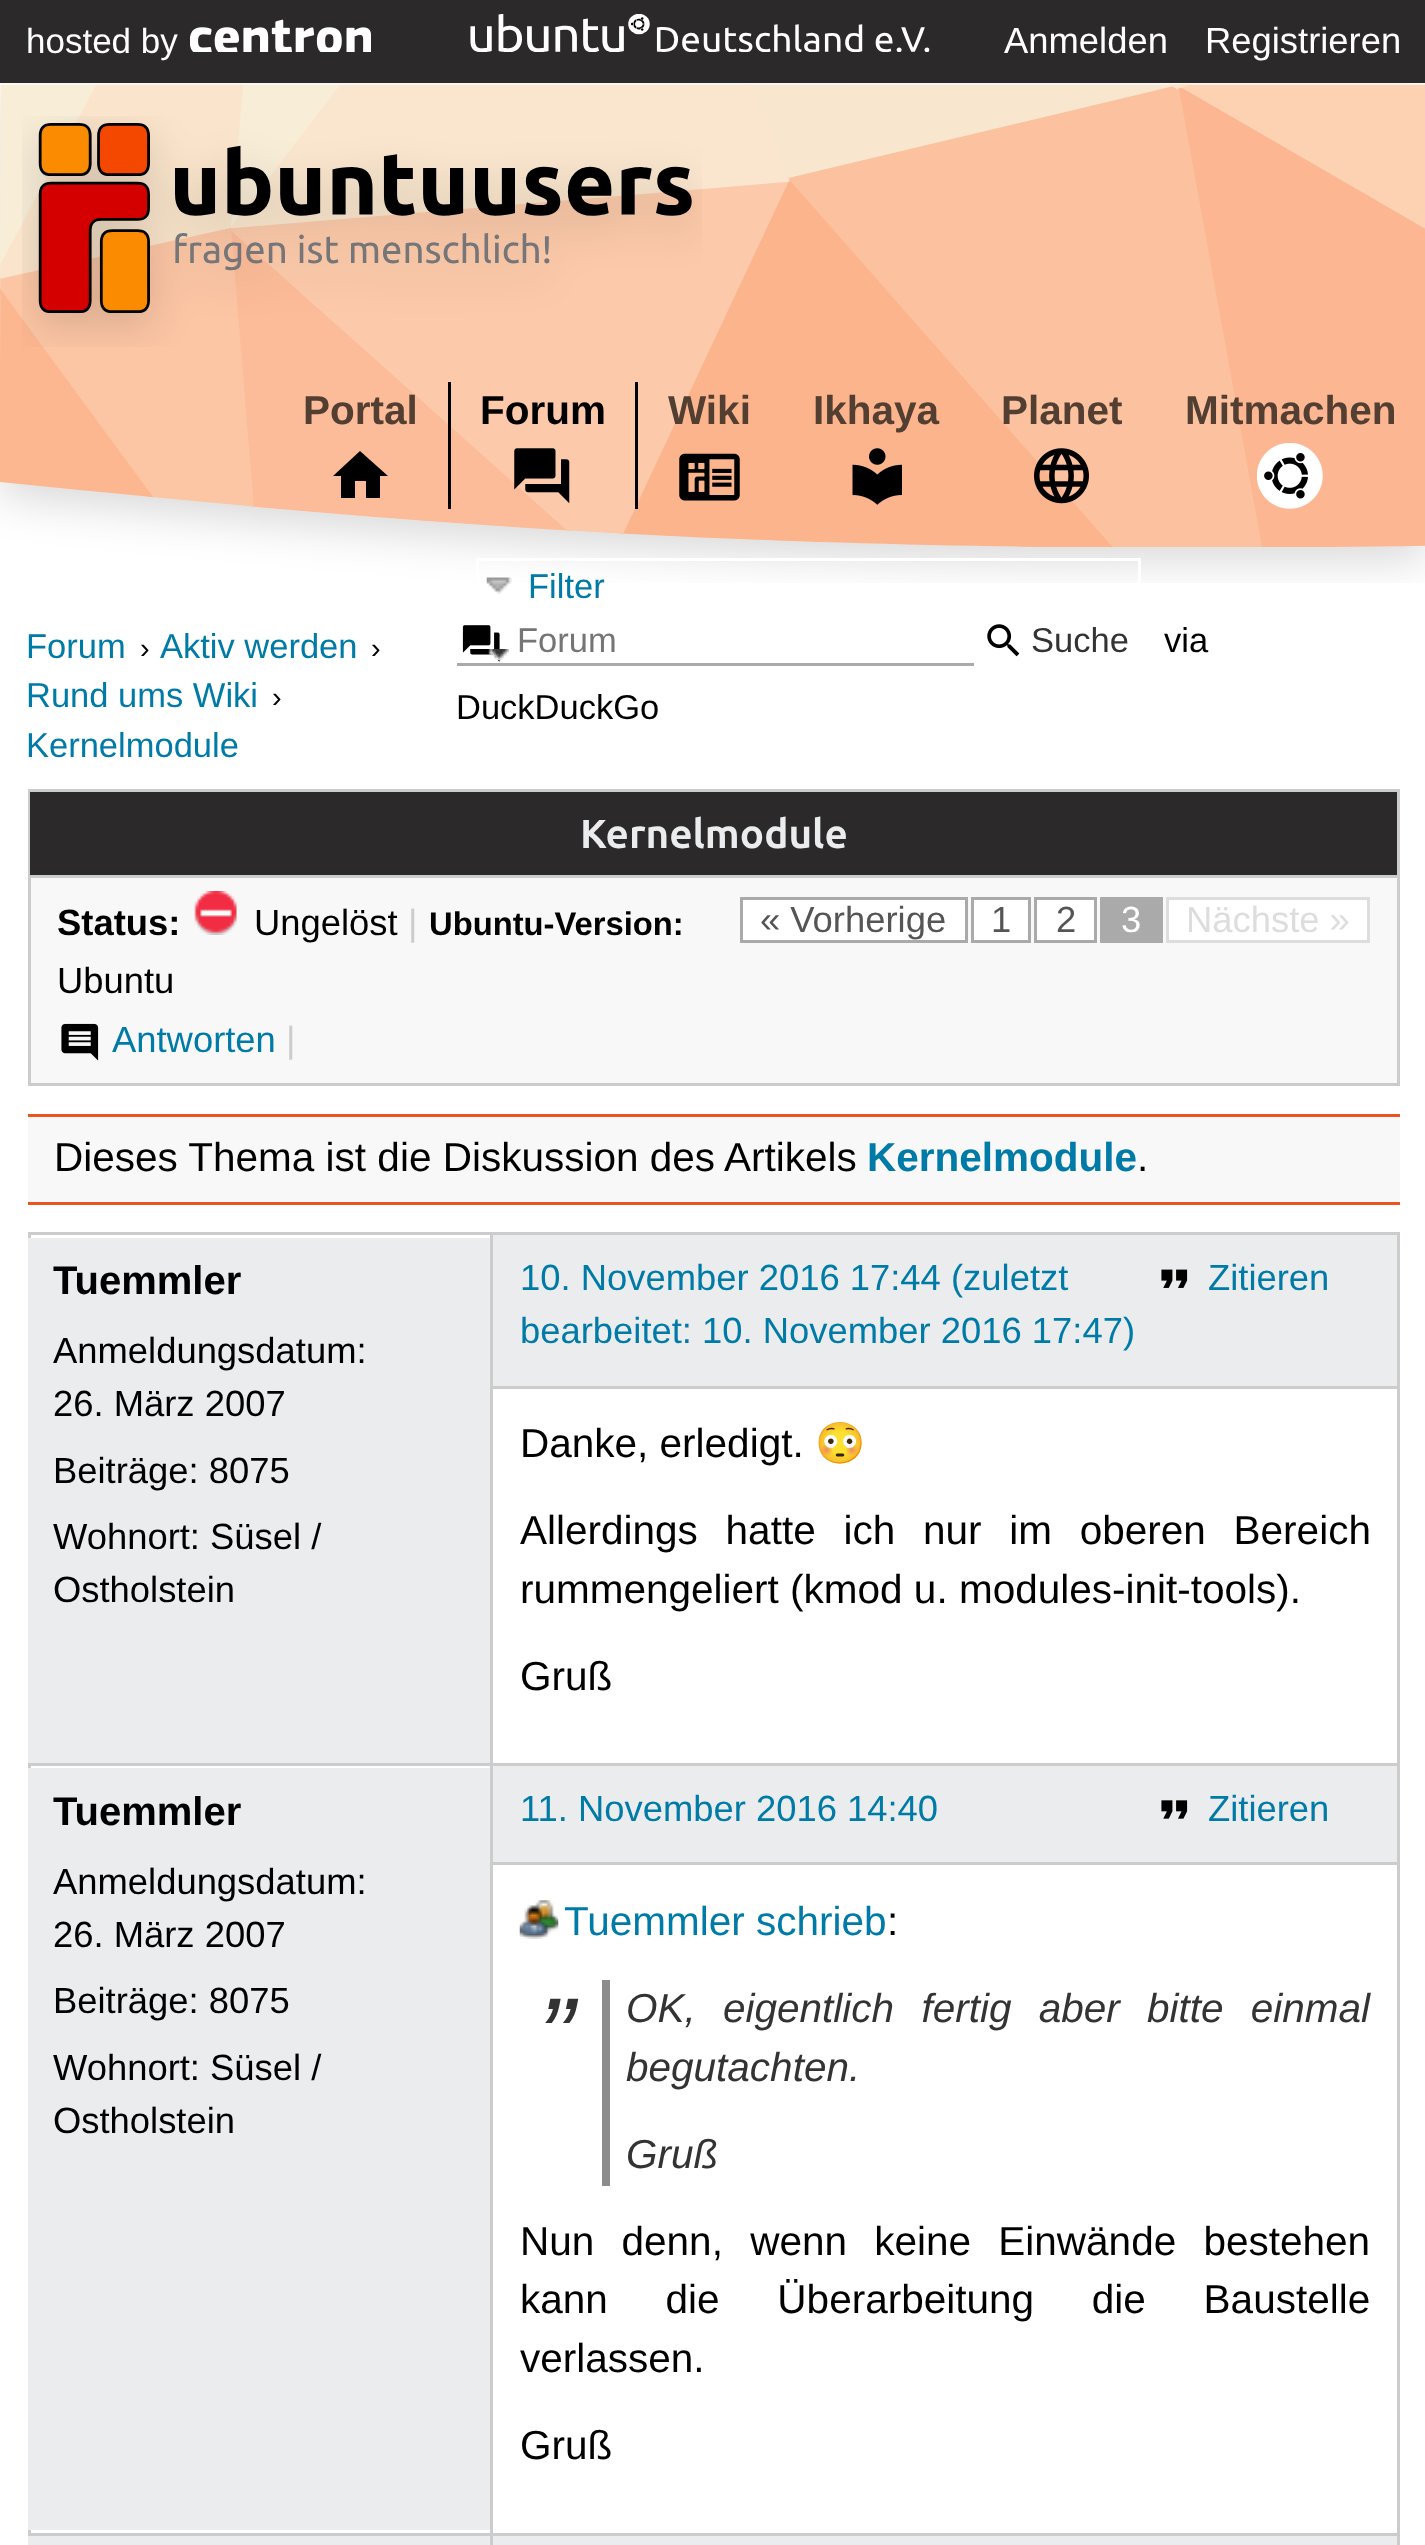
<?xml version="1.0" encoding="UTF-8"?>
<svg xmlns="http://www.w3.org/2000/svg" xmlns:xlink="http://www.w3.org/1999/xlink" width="1425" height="2545">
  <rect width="100%" height="100%" fill="#ffffff" />
  <rect width="1425" height="83" fill="#2b2929" />
  <image x="190" y="19" width="181" height="33" xlink:href="image1.png" />
  <image x="470" y="14" width="460" height="38" xlink:href="image2.png" />
  <image x="0" y="83" width="1425" height="500" xlink:href="image3.png" />
  <image x="22" y="116" width="680" height="231" xlink:href="image4.png" />
  <path d="M 355 498 v -17 h 11 v 17 h 14 v -22 h 8 l -28 -25 l -27 25 h 8 v 22 z" fill="#000000" />
  <rect x="635" y="382" width="3" height="127" fill="#000000" />
  <rect x="448" y="382" width="3" height="127" fill="#000000" />
  <image x="514" y="448" width="56" height="56" xlink:href="image5.png" />
  <image x="679" y="453" width="61" height="48" xlink:href="image6.png" />
  <image x="852" y="448" width="50" height="57" xlink:href="image7.png" />
  <image x="1034" y="448" width="55" height="56" xlink:href="image8.png" />
  <image x="1257" y="443" width="66" height="66" xlink:href="image9.png" />
  <rect x="477.5" y="559.5" width="662" height="63" fill="none" stroke="#ffffff" stroke-width="3" />
  <image x="486" y="577" width="26" height="17" xlink:href="image10.png" />
  <image x="462" y="625" width="38" height="37" xlink:href="image11.png" />
  <rect x="457" y="663" width="517" height="3" fill="#aaaaaa" />
  <image x="987" y="624" width="33" height="33" xlink:href="image12.png" />
  <image x="488" y="649" width="21" height="11" xlink:href="image13.png" />
  <rect x="31" y="878" width="1366" height="205" fill="#f8f8f8" />
  <rect x="29.5" y="790.5" width="1369" height="294" fill="none" stroke="#cccccc" stroke-width="3" />
  <rect x="30" y="792" width="1367" height="83" fill="#2b2929" />
  <rect x="30" y="875" width="1367" height="3" fill="#cccccc" />
  <image x="194" y="891" width="43" height="44" xlink:href="image14.png" />
  <rect x="741.5" y="898.5" width="225" height="43" fill="#ffffff" stroke="#aaaaaa" stroke-width="3" />
  <rect x="972.5" y="898.5" width="57" height="43" fill="#ffffff" stroke="#aaaaaa" stroke-width="3" />
  <rect x="1035.5" y="898.5" width="60" height="43" fill="#ffffff" stroke="#aaaaaa" stroke-width="3" />
  <rect x="1100" y="897" width="63" height="46" fill="#aaaaaa" />
  <rect x="1167.5" y="898.5" width="201" height="43" fill="#ffffff" stroke="#dddddd" stroke-width="3" />
  <image x="61" y="1023" width="38" height="38" xlink:href="image15.png" />
  <rect x="28" y="1117" width="1372" height="85" fill="#f8f8f8" />
  <rect x="28" y="1114" width="1372" height="3" fill="#e95420" />
  <rect x="28" y="1202" width="1372" height="3" fill="#e95420" />
  <rect x="28" y="1232" width="1372" height="3" fill="#cccccc" />
  <rect x="1397" y="1232" width="3" height="1313" fill="#cccccc" />
  <rect x="28" y="1232" width="3" height="1301" fill="#cccccc" />
  <rect x="28" y="1238" width="462" height="525" fill="#eaecee" />
  <rect x="493" y="1235" width="904" height="151" fill="#eaecee" />
  <rect x="492" y="1386" width="905" height="3" fill="#cccccc" />
  <image x="1161" y="1269" width="27" height="19" xlink:href="image16.png" />
  <rect x="28" y="1763" width="1372" height="3" fill="#cccccc" />
  <rect x="492" y="1862" width="905" height="3" fill="#cccccc" />
  <rect x="28" y="2533" width="1372" height="3" fill="#cccccc" />
  <rect x="490" y="2533" width="3" height="12" fill="#cccccc" />
  <rect x="490" y="1232" width="3" height="1304" fill="#cccccc" />
  <rect x="28" y="1768" width="462" height="762" fill="#eaecee" />
  <rect x="493" y="1766" width="904" height="96" fill="#eaecee" />
  <image x="1161" y="1800" width="27" height="19" xlink:href="image17.png" />
  <image x="519" y="1900" width="40" height="39" xlink:href="image18.png" />
  <rect x="602" y="1980" width="8" height="206" fill="#8c8c8c" />
  <rect x="493" y="2536" width="904" height="9" fill="#eaecee" />
  <rect x="28" y="2536" width="462" height="9" fill="#eaecee" />
  <text x="26" y="53" style="font-family: Liberation Sans; font-size: 35px; fill: #ffffff">hosted by</text>
  <text x="1004" y="53" style="font-family: Liberation Sans; font-size: 36.4px; fill: #ffffff">Anmelden</text>
  <text x="1205" y="53" style="font-family: Liberation Sans; font-size: 36.4px; fill: #ffffff">Registrieren</text>
  <text x="303" y="424" style="font-family: Liberation Sans; font-size: 40.5px; font-weight: bold; fill: #533e32">Portal</text>
  <text x="480" y="424" style="font-family: Liberation Sans; font-size: 40.5px; font-weight: bold; fill: #000000">Forum</text>
  <text x="668" y="424" style="font-family: Liberation Sans; font-size: 40.5px; font-weight: bold; fill: #533e32">Wiki</text>
  <text x="813" y="424" style="font-family: Liberation Sans; font-size: 40.5px; font-weight: bold; fill: #533e32">Ikhaya</text>
  <text x="1001" y="424" style="font-family: Liberation Sans; font-size: 40.5px; font-weight: bold; fill: #533e32">Planet</text>
  <text x="1185" y="424" style="font-family: Liberation Sans; font-size: 40.5px; font-weight: bold; fill: #533e32">Mitmachen</text>
  <text x="528" y="598" style="font-family: Liberation Sans; font-size: 34.5px; fill: #007aa6">Filter</text>
  <text x="26" y="658" style="font-family: Liberation Sans; font-size: 34.5px; fill: #007aa6">Forum</text>
  <text x="140" y="658" style="font-family: Liberation Sans; font-size: 29px; fill: #000000">›</text>
  <text x="160" y="658" style="font-family: Liberation Sans; font-size: 34.5px; fill: #007aa6">Aktiv werden</text>
  <text x="371" y="658" style="font-family: Liberation Sans; font-size: 29px; fill: #000000">›</text>
  <text x="26" y="707" style="font-family: Liberation Sans; font-size: 34.5px; fill: #007aa6">Rund ums Wiki</text>
  <text x="272" y="707" style="font-family: Liberation Sans; font-size: 29px; fill: #000000">›</text>
  <text x="26" y="757" style="font-family: Liberation Sans; font-size: 34.5px; fill: #007aa6">Kernelmodule</text>
  <text x="517" y="652" style="font-family: Liberation Sans; font-size: 34.5px; fill: #757575">Forum</text>
  <text x="1031" y="652" style="font-family: Liberation Sans; font-size: 34.5px; fill: #333333">Suche</text>
  <text x="1164" y="652" style="font-family: Liberation Sans; font-size: 34.5px; fill: #000000">via</text>
  <text x="456" y="719" style="font-family: Liberation Sans; font-size: 34.5px; fill: #000000">DuckDuckGo</text>
  <text x="580" y="848" style="font-family: Ubuntu; font-size: 40.5px; font-weight: bold; fill: #eaecee">Kernelmodule</text>
  <text x="57" y="935" style="font-family: Liberation Sans; font-size: 36.4px; font-weight: bold; fill: #000000">Status:</text>
  <text x="254" y="935" style="font-family: Liberation Sans; font-size: 36.4px; fill: #000000">Ungelöst</text>
  <text x="408" y="935" style="font-family: Liberation Sans; font-size: 36.4px; fill: #cccccc">|</text>
  <text x="429" y="935" style="font-family: Liberation Sans; font-size: 32.75px; font-weight: bold; fill: #000000">Ubuntu-Version:</text>
  <text x="760" y="932" style="font-family: Liberation Sans; font-size: 36.4px; fill: #555555">« Vorherige</text>
  <text x="991" y="932" style="font-family: Liberation Sans; font-size: 36.4px; fill: #555555">1</text>
  <text x="1056" y="932" style="font-family: Liberation Sans; font-size: 36.4px; fill: #555555">2</text>
  <text x="1121" y="932" style="font-family: Liberation Sans; font-size: 36.4px; fill: #ffffff">3</text>
  <text x="1186" y="932" style="font-family: Liberation Sans; font-size: 36.4px; fill: #dddddd">Nächste »</text>
  <text x="57" y="993" style="font-family: Liberation Sans; font-size: 36.4px; fill: #000000">Ubuntu</text>
  <text x="112" y="1052" style="font-family: Liberation Sans; font-size: 36.4px; fill: #007aa6">Antworten</text>
  <text x="286" y="1052" style="font-family: Liberation Sans; font-size: 36.4px; fill: #cccccc">|</text>
  <text x="54" y="1171" style="font-family: Liberation Sans; font-size: 40.5px; fill: #000000">Dieses Thema ist die Diskussion des Artikels</text>
  <text x="867" y="1171" style="font-family: Liberation Sans; font-size: 40.5px; font-weight: bold; fill: #007aa6">Kernelmodule</text>
  <text x="1137" y="1171" style="font-family: Liberation Sans; font-size: 40.5px; fill: #000000">.</text>
  <text x="53" y="1294" style="font-family: Liberation Sans; font-size: 40px; font-weight: bold; fill: #000000">Tuemmler</text>
  <text x="53" y="1363" style="font-family: Liberation Sans; font-size: 36.4px; fill: #000000">Anmeldungsdatum:</text>
  <text x="53" y="1416" style="font-family: Liberation Sans; font-size: 36.4px; fill: #000000">26. März 2007</text>
  <text x="53" y="1483" style="font-family: Liberation Sans; font-size: 36.4px; fill: #000000">Beiträge: 8075</text>
  <text x="53" y="1549" style="font-family: Liberation Sans; font-size: 36.4px; fill: #000000">Wohnort: Süsel /</text>
  <text x="53" y="1602" style="font-family: Liberation Sans; font-size: 36.4px; fill: #000000">Ostholstein</text>
  <text x="520" y="1290" style="font-family: Liberation Sans; font-size: 36.4px; fill: #007aa6">10. November 2016 17:44</text>
  <text x="951" y="1290" style="font-family: Liberation Sans; font-size: 36.4px; fill: #007aa6">(zuletzt</text>
  <text x="1208" y="1290" style="font-family: Liberation Sans; font-size: 36.4px; fill: #007aa6">Zitieren</text>
  <text x="520" y="1343" style="font-family: Liberation Sans; font-size: 36.4px; fill: #007aa6">bearbeitet: 10. November 2016 17:47)</text>
  <text x="520" y="1457" style="font-family: Liberation Sans; font-size: 40.5px; fill: #000000">Danke, erledigt.</text>
  <text x="815" y="1457" style="font-family: Noto Color Emoji; font-size: 40.5px; fill: #000000">😳</text>
  <text x="520" y="1544" word-spacing="16.5" style="font-family: Liberation Sans; font-size: 40.5px; fill: #000000">Allerdings hatte ich nur im oberen Bereich</text>
  <text x="520" y="1603" style="font-family: Liberation Sans; font-size: 40.5px; fill: #000000">rummengeliert (kmod u. modules-init-tools).</text>
  <text x="520" y="1690" style="font-family: Liberation Sans; font-size: 40.5px; fill: #000000">Gruß</text>
  <text x="53" y="1825" style="font-family: Liberation Sans; font-size: 40px; font-weight: bold; fill: #000000">Tuemmler</text>
  <text x="53" y="1894" style="font-family: Liberation Sans; font-size: 36.4px; fill: #000000">Anmeldungsdatum:</text>
  <text x="53" y="1947" style="font-family: Liberation Sans; font-size: 36.4px; fill: #000000">26. März 2007</text>
  <text x="53" y="2013" style="font-family: Liberation Sans; font-size: 36.4px; fill: #000000">Beiträge: 8075</text>
  <text x="53" y="2080" style="font-family: Liberation Sans; font-size: 36.4px; fill: #000000">Wohnort: Süsel /</text>
  <text x="53" y="2133" style="font-family: Liberation Sans; font-size: 36.4px; fill: #000000">Ostholstein</text>
  <text x="520" y="1821" style="font-family: Liberation Sans; font-size: 36.4px; fill: #007aa6">11. November 2016 14:40</text>
  <text x="1208" y="1821" style="font-family: Liberation Sans; font-size: 36.4px; fill: #007aa6">Zitieren</text>
  <text x="564" y="1935" style="font-family: Liberation Sans; font-size: 40.5px; fill: #007aa6">Tuemmler schrieb</text>
  <text x="887" y="1935" style="font-family: Liberation Sans; font-size: 40.5px; fill: #000000">:</text>
  <text x="549" y="2009" style="font-family: Liberation Sans; font-size: 109px; font-style: italic; fill: #333333">„</text>
  <text x="626" y="2022" word-spacing="16" style="font-family: Liberation Sans; font-size: 40.5px; font-style: italic; fill: #333333">OK, eigentlich fertig aber bitte einmal</text>
  <text x="626" y="2081" style="font-family: Liberation Sans; font-size: 40.5px; font-style: italic; fill: #333333">begutachten.</text>
  <text x="626" y="2168" style="font-family: Liberation Sans; font-size: 40.5px; font-style: italic; fill: #333333">Gruß</text>
  <text x="520" y="2255" word-spacing="16" style="font-family: Liberation Sans; font-size: 40.5px; fill: #000000">Nun denn, wenn keine Einwände bestehen</text>
  <text x="520" y="2313" word-spacing="46.5" style="font-family: Liberation Sans; font-size: 40.5px; fill: #000000">kann die Überarbeitung die Baustelle</text>
  <text x="520" y="2372" style="font-family: Liberation Sans; font-size: 40.5px; fill: #000000">verlassen.</text>
  <text x="520" y="2459" style="font-family: Liberation Sans; font-size: 40.5px; fill: #000000">Gruß</text>
</svg>
